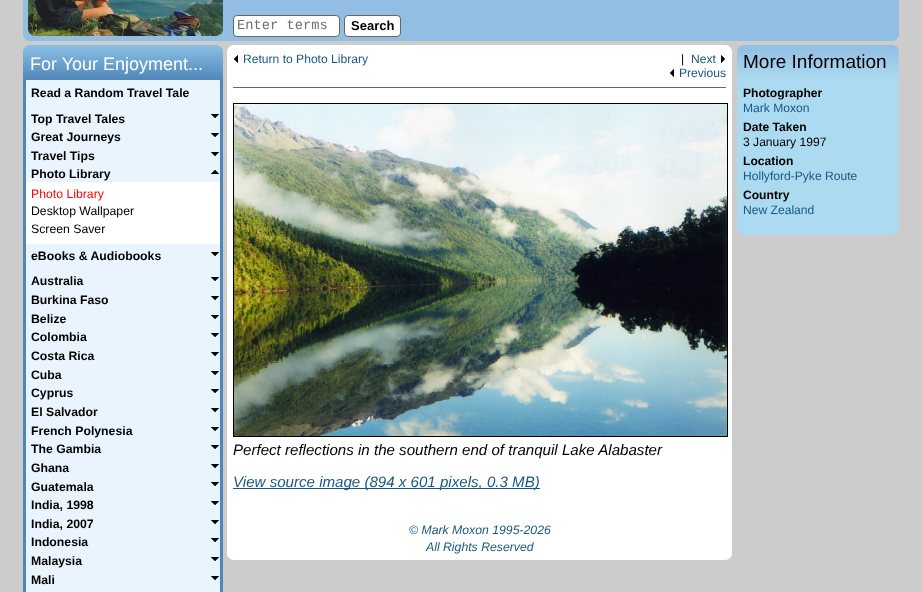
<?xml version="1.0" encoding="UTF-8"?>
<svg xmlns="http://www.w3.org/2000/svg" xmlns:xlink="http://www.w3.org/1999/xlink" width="922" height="592">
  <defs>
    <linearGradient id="g1" gradientUnits="userSpaceOnUse" x1="123" y1="45" x2="123" y2="80"><stop offset="0" stop-color="#8bc0e5" /><stop offset="1" stop-color="#5087b8" /></linearGradient>
    <linearGradient id="g2" gradientUnits="userSpaceOnUse" x1="818" y1="45" x2="818" y2="80"><stop offset="0" stop-color="#91bee2" /><stop offset="1" stop-color="#acdaf0" /></linearGradient>
  </defs>
  <rect width="100%" height="100%" fill="#cccccc" />
  <rect x="23" y="-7" width="876" height="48" rx="7" fill="#91bee2" />
  <image x="28" y="0" width="195" height="36" xlink:href="image1.png" />
  <rect x="233.5" y="15.5" width="106" height="21" rx="3.5" fill="#ffffff" stroke="#666666" />
  <rect x="344.5" y="15.5" width="56" height="21" rx="3.5" fill="#ffffff" stroke="#666666" />
  <path d="M 30 45 h 186 c 4 0 7 3 7 7 v 28 h -200 v -28 c 0 -4 3 -7 7 -7 z" fill="url(#g1)" />
  <rect x="26" y="80" width="194" height="512" fill="#e9f4ff" />
  <path d="M 23 80 h 200 v 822 c 0 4 -3 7 -7 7 h -186 c -4 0 -7 -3 -7 -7 z m 3 0 h 194 v 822 c 0 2 -2 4 -4 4 h -186 c -2 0 -4 -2 -4 -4 z" fill="#5087b8" fill-rule="evenodd" />
  <image x="211" y="114" width="8" height="4" xlink:href="image2.png" />
  <image x="211" y="133" width="8" height="4" xlink:href="image2.png" />
  <image x="211" y="152" width="8" height="4" xlink:href="image2.png" />
  <image x="211" y="170" width="8" height="4" xlink:href="image3.png" />
  <rect x="26" y="182" width="194" height="62" fill="#ffffff" />
  <image x="211" y="252" width="8" height="4" xlink:href="image2.png" />
  <image x="211" y="277" width="8" height="4" xlink:href="image2.png" />
  <image x="211" y="296" width="8" height="4" xlink:href="image2.png" />
  <image x="211" y="315" width="8" height="4" xlink:href="image2.png" />
  <image x="211" y="333" width="8" height="4" xlink:href="image2.png" />
  <image x="211" y="352" width="8" height="4" xlink:href="image2.png" />
  <image x="211" y="371" width="8" height="4" xlink:href="image2.png" />
  <image x="211" y="389" width="8" height="4" xlink:href="image2.png" />
  <image x="211" y="408" width="8" height="4" xlink:href="image2.png" />
  <image x="211" y="427" width="8" height="4" xlink:href="image2.png" />
  <image x="211" y="445" width="8" height="4" xlink:href="image2.png" />
  <image x="211" y="464" width="8" height="4" xlink:href="image2.png" />
  <image x="211" y="482" width="8" height="4" xlink:href="image2.png" />
  <image x="211" y="501" width="8" height="4" xlink:href="image2.png" />
  <image x="211" y="520" width="8" height="4" xlink:href="image2.png" />
  <image x="211" y="538" width="8" height="4" xlink:href="image2.png" />
  <image x="211" y="557" width="8" height="4" xlink:href="image2.png" />
  <image x="211" y="576" width="8" height="4" xlink:href="image2.png" />
  <path d="M 234 45 h 491 c 4 0 7 3 7 7 v 458 h -505 v -458 c 0 -4 3 -7 7 -7 z" fill="#ffffff" />
  <rect x="233" y="87" width="493" height="1" fill="#666666" />
  <image x="234" y="55" width="4" height="8" xlink:href="image4.png" />
  <image x="721" y="55" width="4" height="8" xlink:href="image5.png" />
  <image x="670" y="69" width="4" height="8" xlink:href="image4.png" />
  <path d="M 744 45 h 148 c 4 0 7 3 7 7 v 28 h -162 v -28 c 0 -4 3 -7 7 -7 z" fill="url(#g2)" />
  <path d="M 737 80 h 162 v 148 c 0 4 -3 7 -7 7 h -148 c -4 0 -7 -3 -7 -7 z" fill="#acdaf0" />
  <rect x="233.5" y="103.5" width="494" height="333" fill="none" stroke="#000000" />
  <image x="234" y="104" width="493" height="332" xlink:href="image6.png" />
  <rect x="233" y="488" width="307" height="1" fill="#185882" />
  <path d="M 227 510 h 505 v 43 c 0 4 -3 7 -7 7 h -491 c -4 0 -7 -3 -7 -7 z" fill="#ffffff" />
  <rect x="227" y="553" width="505" height="3" fill="#ffffff" />
  <text x="237" y="29" style="font-family: Liberation Mono; font-size: 13.75px; fill: #707070">Enter terms</text>
  <text x="351" y="30" style="font-family: Liberation Sans; font-size: 13px; font-weight: bold; fill: #000000">Search</text>
  <text x="30" y="70" style="font-family: Liberation Sans; font-size: 18px; fill: #ffffff">For Your Enjoyment...</text>
  <text x="31" y="97" style="font-family: Liberation Sans; font-size: 12.25px; font-weight: bold; fill: #000000">Read a Random Travel Tale</text>
  <text x="31" y="123" style="font-family: Liberation Sans; font-size: 12.25px; font-weight: bold; fill: #000000">Top Travel Tales</text>
  <text x="31" y="141" style="font-family: Liberation Sans; font-size: 12.25px; font-weight: bold; fill: #000000">Great Journeys</text>
  <text x="31" y="160" style="font-family: Liberation Sans; font-size: 12.25px; font-weight: bold; fill: #000000">Travel Tips</text>
  <text x="31" y="178" style="font-family: Liberation Sans; font-size: 12.25px; font-weight: bold; fill: #000000">Photo Library</text>
  <text x="31" y="198" style="font-family: Liberation Sans; font-size: 12.25px; fill: #ff0000">Photo Library</text>
  <text x="31" y="215" style="font-family: Liberation Sans; font-size: 12.25px; fill: #000000">Desktop Wallpaper</text>
  <text x="31" y="233" style="font-family: Liberation Sans; font-size: 12.25px; fill: #000000">Screen Saver</text>
  <text x="31" y="260" style="font-family: Liberation Sans; font-size: 12.25px; font-weight: bold; fill: #000000">eBooks &amp; Audiobooks</text>
  <text x="31" y="285" style="font-family: Liberation Sans; font-size: 12.25px; font-weight: bold; fill: #000000">Australia</text>
  <text x="31" y="304" style="font-family: Liberation Sans; font-size: 12.25px; font-weight: bold; fill: #000000">Burkina Faso</text>
  <text x="31" y="323" style="font-family: Liberation Sans; font-size: 12.25px; font-weight: bold; fill: #000000">Belize</text>
  <text x="31" y="341" style="font-family: Liberation Sans; font-size: 12.25px; font-weight: bold; fill: #000000">Colombia</text>
  <text x="31" y="360" style="font-family: Liberation Sans; font-size: 12.25px; font-weight: bold; fill: #000000">Costa Rica</text>
  <text x="31" y="379" style="font-family: Liberation Sans; font-size: 12.25px; font-weight: bold; fill: #000000">Cuba</text>
  <text x="31" y="397" style="font-family: Liberation Sans; font-size: 12.25px; font-weight: bold; fill: #000000">Cyprus</text>
  <text x="31" y="416" style="font-family: Liberation Sans; font-size: 12.25px; font-weight: bold; fill: #000000">El Salvador</text>
  <text x="31" y="435" style="font-family: Liberation Sans; font-size: 12.25px; font-weight: bold; fill: #000000">French Polynesia</text>
  <text x="31" y="453" style="font-family: Liberation Sans; font-size: 12.25px; font-weight: bold; fill: #000000">The Gambia</text>
  <text x="31" y="472" style="font-family: Liberation Sans; font-size: 12.25px; font-weight: bold; fill: #000000">Ghana</text>
  <text x="31" y="491" style="font-family: Liberation Sans; font-size: 12.25px; font-weight: bold; fill: #000000">Guatemala</text>
  <text x="31" y="509" style="font-family: Liberation Sans; font-size: 12.25px; font-weight: bold; fill: #000000">India, 1998</text>
  <text x="31" y="528" style="font-family: Liberation Sans; font-size: 12.25px; font-weight: bold; fill: #000000">India, 2007</text>
  <text x="31" y="546" style="font-family: Liberation Sans; font-size: 12.25px; font-weight: bold; fill: #000000">Indonesia</text>
  <text x="31" y="565" style="font-family: Liberation Sans; font-size: 12.25px; font-weight: bold; fill: #000000">Malaysia</text>
  <text x="31" y="584" style="font-family: Liberation Sans; font-size: 12.25px; font-weight: bold; fill: #000000">Mali</text>
  <text x="243" y="63" style="font-family: Liberation Sans; font-size: 12.1px; fill: #185882">Return to Photo Library</text>
  <text x="681" y="63" style="font-family: Liberation Sans; font-size: 12.1px; fill: #000000">|</text>
  <text x="691" y="63" style="font-family: Liberation Sans; font-size: 12.1px; fill: #185882">Next</text>
  <text x="679" y="77" style="font-family: Liberation Sans; font-size: 12.1px; fill: #185882">Previous</text>
  <text x="743" y="68" style="font-family: Liberation Sans; font-size: 19px; fill: #000000">More Information</text>
  <text x="743" y="97" style="font-family: Liberation Sans; font-size: 12.1px; font-weight: bold; fill: #000000">Photographer</text>
  <text x="743" y="112" style="font-family: Liberation Sans; font-size: 12.1px; fill: #185882">Mark Moxon</text>
  <text x="743" y="131" style="font-family: Liberation Sans; font-size: 12.1px; font-weight: bold; fill: #000000">Date Taken</text>
  <text x="743" y="146" style="font-family: Liberation Sans; font-size: 12.1px; fill: #000000">3 January 1997</text>
  <text x="743" y="165" style="font-family: Liberation Sans; font-size: 12.1px; font-weight: bold; fill: #000000">Location</text>
  <text x="743" y="180" style="font-family: Liberation Sans; font-size: 12.1px; fill: #185882">Hollyford-Pyke Route</text>
  <text x="743" y="199" style="font-family: Liberation Sans; font-size: 12.1px; font-weight: bold; fill: #000000">Country</text>
  <text x="743" y="214" style="font-family: Liberation Sans; font-size: 12.1px; fill: #185882">New Zealand</text>
  <text x="233" y="455" style="font-family: Liberation Sans; font-size: 15.1px; font-style: italic; fill: #000000">Perfect reflections in the southern end of tranquil Lake Alabaster</text>
  <text x="233" y="487" style="font-family: Liberation Sans; font-size: 15.1px; font-style: italic; fill: #185882">View source image (894 x 601 pixels, 0.3 MB)</text>
  <text x="409" y="534" style="font-family: Liberation Sans; font-size: 12.25px; font-style: italic; fill: #185882">© Mark Moxon 1995-2026</text>
  <text x="426" y="551" style="font-family: Liberation Sans; font-size: 12.25px; font-style: italic; fill: #185882">All Rights Reserved</text>
</svg>
